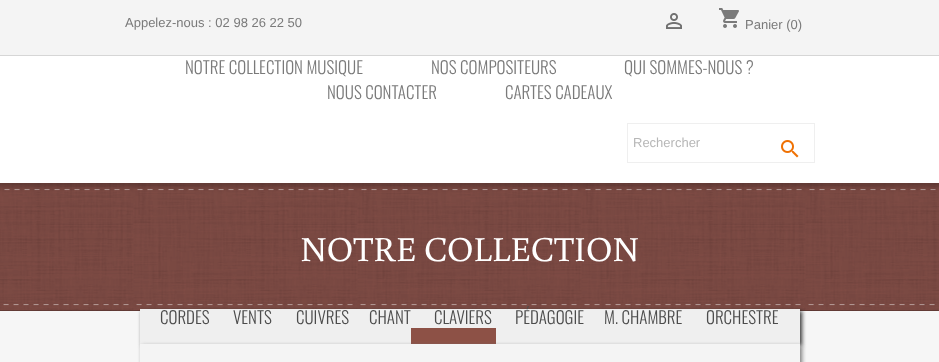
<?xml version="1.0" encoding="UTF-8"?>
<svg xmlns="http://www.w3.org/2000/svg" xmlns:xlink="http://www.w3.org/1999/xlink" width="939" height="362">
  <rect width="100%" height="100%" fill="#ffffff" />
  <rect width="939" height="55" fill="#f4f4f4" />
  <rect y="55" width="939" height="1" fill="#d6d6d6" />
  <image x="666" y="13" width="16" height="16" xlink:href="image1.png" />
  <image x="719" y="8" width="20" height="20" xlink:href="image2.png" />
  <rect x="627.5" y="123.5" width="187" height="39" fill="none" stroke="#efefef" />
  <image x="781" y="140" width="18" height="18" xlink:href="image3.png" />
  <rect y="311" width="939" height="51" fill="#f6f6f6" />
  <image x="0" y="183" width="939" height="128" xlink:href="image4.png" />
  <rect x="142" y="311" width="660" height="35" fill="#333333" filter="blur(2px)" />
  <rect x="140" y="309" width="660" height="35" fill="#efefef" />
  <rect x="411" y="328" width="85" height="16" fill="#8d5146" />
  <rect x="142" y="346" width="660" height="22" fill="#7c7c7c" filter="blur(2px)" />
  <rect x="140" y="344" width="660" height="18" fill="#f4f4f4" />
  <text x="125" y="27" style="font-family: Liberation Sans; font-size: 13px; fill: #7a7a7a">Appelez-nous : 02 98 26 22 50</text>
  <text x="745" y="29" style="font-family: Liberation Sans; font-size: 13px; fill: #7a7a7a">Panier (0)</text>
  <text x="185" y="74" style="font-family: Oswald; font-size: 17px; font-weight: 300; fill: #7a7a7a">NOTRE COLLECTION MUSIQUE</text>
  <text x="431" y="74" style="font-family: Oswald; font-size: 17px; font-weight: 300; fill: #7a7a7a">NOS COMPOSITEURS</text>
  <text x="624" y="74" style="font-family: Oswald; font-size: 17px; font-weight: 300; fill: #7a7a7a">QUI SOMMES-NOUS ?</text>
  <text x="327" y="99" style="font-family: Oswald; font-size: 17px; font-weight: 300; fill: #7a7a7a">NOUS CONTACTER</text>
  <text x="505" y="99" style="font-family: Oswald; font-size: 17px; font-weight: 300; fill: #7a7a7a">CARTES CADEAUX</text>
  <text x="633" y="147" style="font-family: Liberation Sans; font-size: 13px; fill: #b7b7b7">Rechercher</text>
  <text x="300" y="261" style="font-family: Buenard; font-size: 35px; fill: #ffffff">NOTRE COLLECTION</text>
  <text x="160" y="324" style="font-family: Oswald; font-size: 17px; font-weight: 300; fill: #4c4c4c">CORDES</text>
  <text x="233" y="324" style="font-family: Oswald; font-size: 17px; font-weight: 300; fill: #4c4c4c">VENTS</text>
  <text x="296" y="324" style="font-family: Oswald; font-size: 17px; font-weight: 300; fill: #4c4c4c">CUIVRES</text>
  <text x="369" y="324" style="font-family: Oswald; font-size: 17px; font-weight: 300; fill: #4c4c4c">CHANT</text>
  <text x="434" y="324" style="font-family: Oswald; font-size: 17px; font-weight: 300; fill: #4c4c4c">CLAVIERS</text>
  <text x="515" y="324" style="font-family: Oswald; font-size: 17px; font-weight: 300; fill: #4c4c4c">PÉDAGOGIE</text>
  <text x="604" y="324" style="font-family: Oswald; font-size: 17px; font-weight: 300; fill: #4c4c4c">M. CHAMBRE</text>
  <text x="706" y="324" style="font-family: Oswald; font-size: 17px; font-weight: 300; fill: #4c4c4c">ORCHESTRE</text>
</svg>
